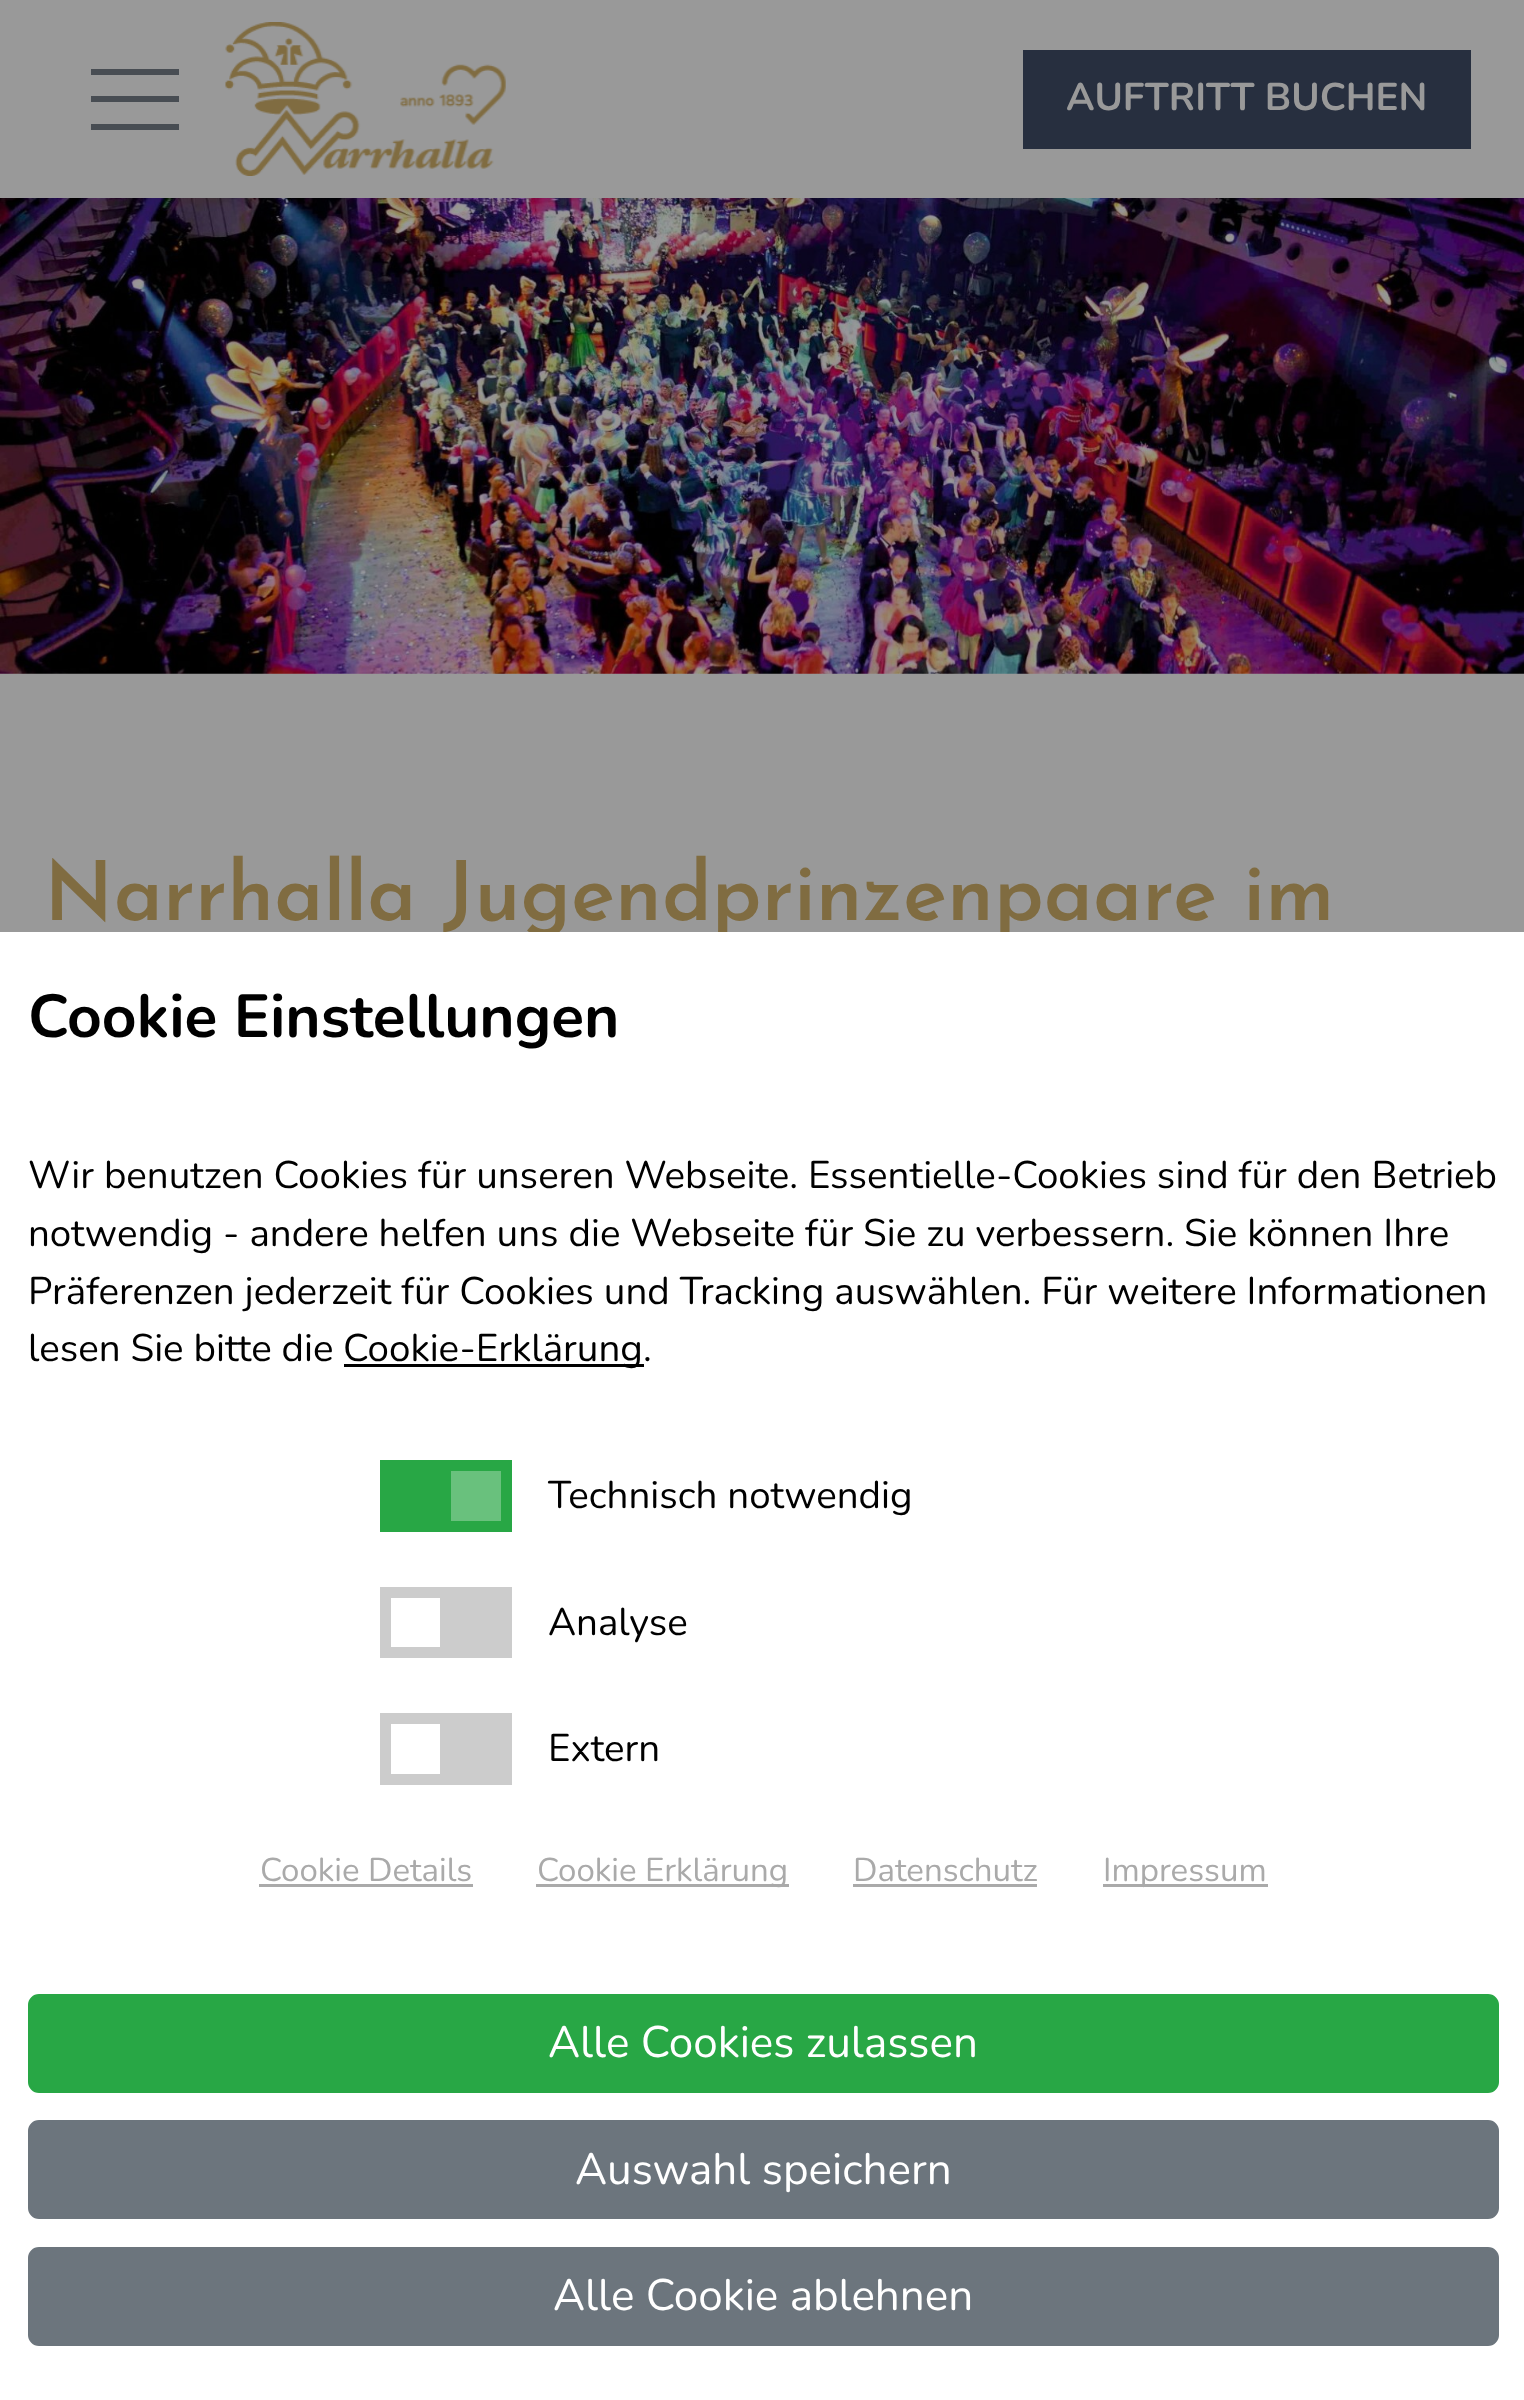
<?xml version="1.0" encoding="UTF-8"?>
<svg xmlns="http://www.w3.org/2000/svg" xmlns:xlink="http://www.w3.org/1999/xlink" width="1524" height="2400">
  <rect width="100%" height="100%" fill="#999999" />
  <rect x="91" y="69" width="88" height="6" fill="#484d53" />
  <rect x="91" y="96" width="88" height="6" fill="#484d53" />
  <rect x="91" y="124" width="88" height="6" fill="#484d53" />
  <image x="225" y="22" width="281" height="154" xlink:href="image1.png" />
  <rect x="1023" y="50" width="448" height="99" fill="#272f3f" />
  <image x="0" y="198" width="1524" height="476" xlink:href="image2.png" />
  <text x="1066" y="110" style="font-family: Nunito; font-size: 38.5px; font-weight: 200; fill: #999999">AUFTRITT BUCHEN</text>
  <text x="44" y="920" style="font-family: Josefin Sans; font-size: 82.5px; font-weight: 100; fill: #806c41">Narrhalla Jugendprinzenpaare im</text>
  <rect y="932" width="1524" height="1468" fill="#ffffff" />
  <text x="28" y="1037" style="font-family: Nunito; font-size: 60.5px; font-weight: 200; fill: #000000">Cookie Einstellungen</text>
  <text x="28" y="1188" style="font-family: 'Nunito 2'; font-size: 38.5px; font-weight: 200; fill: #000000">Wir benutzen Cookies für unseren Webseite. Essentielle-Cookies sind für den Betrieb</text>
  <text x="28" y="1246" style="font-family: 'Nunito 2'; font-size: 38.5px; font-weight: 200; fill: #000000">notwendig - andere helfen uns die Webseite für Sie zu verbessern. Sie können Ihre</text>
  <text x="28" y="1304" style="font-family: 'Nunito 2'; font-size: 38.5px; font-weight: 200; fill: #000000">Präferenzen jederzeit für Cookies und Tracking auswählen. Für weitere Informationen</text>
  <text x="28" y="1361" style="font-family: 'Nunito 2'; font-size: 38.5px; font-weight: 200; fill: #000000">lesen Sie bitte die</text>
  <rect x="344" y="1364" width="300" height="3" fill="#000000" />
  <text x="343" y="1361" style="font-family: 'Nunito 2'; font-size: 38.5px; font-weight: 200; fill: #000000">Cookie-Erklärung.</text>
  <rect x="380" y="1460" width="132" height="72" fill="#28a745" />
  <rect x="451" y="1471" width="50" height="50" fill="#69c17d" />
  <text x="548" y="1508" style="font-family: 'Nunito 2'; font-size: 38.5px; font-weight: 200; fill: #000000">Technisch notwendig</text>
  <rect x="380" y="1587" width="132" height="71" fill="#cccccc" />
  <rect x="391" y="1598" width="49" height="49" fill="#ffffff" />
  <text x="548" y="1635" style="font-family: 'Nunito 2'; font-size: 38.5px; font-weight: 200; fill: #000000">Analyse</text>
  <rect x="380" y="1713" width="132" height="72" fill="#cccccc" />
  <rect x="391" y="1724" width="49" height="50" fill="#ffffff" />
  <text x="548" y="1761" style="font-family: 'Nunito 2'; font-size: 38.5px; font-weight: 200; fill: #000000">Extern</text>
  <text x="260" y="1881" style="font-family: 'Nunito 2'; font-size: 33px; font-weight: 200; fill: #aaaaaa">Cookie Details</text>
  <rect x="259" y="1884" width="214" height="3" fill="#aaaaaa" />
  <rect x="536" y="1884" width="253" height="3" fill="#aaaaaa" />
  <text x="537" y="1881" style="font-family: 'Nunito 2'; font-size: 33px; font-weight: 200; fill: #aaaaaa">Cookie Erklärung</text>
  <text x="853" y="1881" style="font-family: 'Nunito 2'; font-size: 33px; font-weight: 200; fill: #aaaaaa">Datenschutz</text>
  <rect x="853" y="1884" width="184" height="3" fill="#aaaaaa" />
  <rect x="1103" y="1884" width="165" height="3" fill="#aaaaaa" />
  <text x="1103" y="1881" style="font-family: 'Nunito 2'; font-size: 33px; font-weight: 200; fill: #aaaaaa">Impressum</text>
  <rect x="29.5" y="1995.5" width="1468" height="96" rx="9.5" fill="#28a745" stroke="#28a745" stroke-width="3" />
  <text x="548" y="2057" style="font-family: 'Nunito 2'; font-size: 44px; font-weight: 200; fill: #ffffff">Alle Cookies zulassen</text>
  <rect x="29.5" y="2121.5" width="1468" height="96" rx="9.5" fill="#6c757d" stroke="#6c757d" stroke-width="3" />
  <text x="575" y="2184" style="font-family: 'Nunito 2'; font-size: 44px; font-weight: 200; fill: #ffffff">Auswahl speichern</text>
  <rect x="29.5" y="2248.5" width="1468" height="96" rx="9.5" fill="#6c757d" stroke="#6c757d" stroke-width="3" />
  <text x="553" y="2310" style="font-family: 'Nunito 2'; font-size: 44px; font-weight: 200; fill: #ffffff">Alle Cookie ablehnen</text>
</svg>
